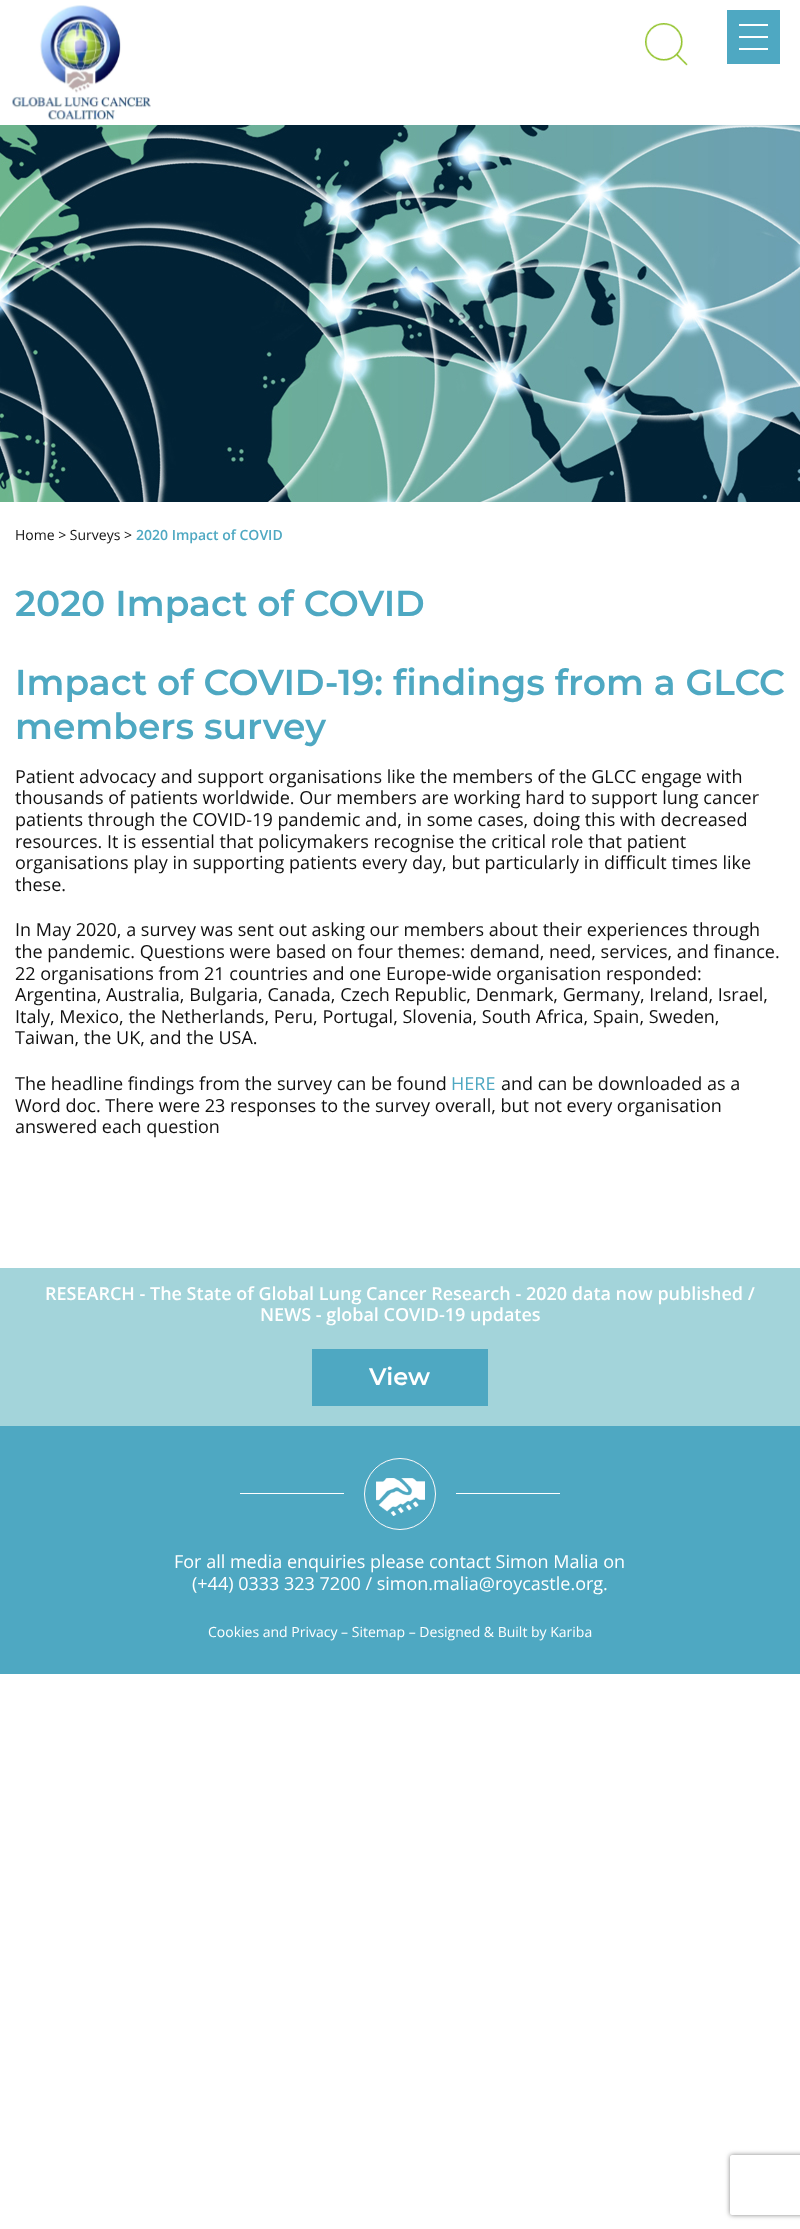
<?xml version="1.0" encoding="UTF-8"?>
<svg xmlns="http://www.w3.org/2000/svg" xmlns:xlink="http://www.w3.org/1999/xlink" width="800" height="2229">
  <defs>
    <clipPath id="clip1"><path d="M 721 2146 h 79 v 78 h -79 z m 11 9 h 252 c 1 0 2 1 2 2 v 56 c 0 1 -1 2 -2 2 h -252 c -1 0 -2 -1 -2 -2 v -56 c 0 -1 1 -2 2 -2 z" clip-rule="evenodd" /></clipPath>
  </defs>
  <rect width="100%" height="100%" fill="#ffffff" />
  <rect x="727" y="10" width="53" height="54" fill="#4ea8c2" />
  <rect x="739" y="24" width="29" height="2" fill="#ffffff" />
  <rect x="739" y="36" width="29" height="2" fill="#ffffff" />
  <rect x="739" y="48" width="29" height="2" fill="#ffffff" />
  <image x="12" y="5" width="139" height="115" xlink:href="image1.png" />
  <image x="645" y="23" width="43" height="43" xlink:href="image2.png" />
  <image x="0" y="125" width="800" height="377" xlink:href="image3.png" />
  <rect y="1268" width="800" height="158" fill="#a3d4da" />
  <rect x="312" y="1349" width="176" height="57" fill="#4ea8c2" />
  <rect y="1426" width="800" height="248" fill="#4ea8c2" />
  <rect x="240" y="1493" width="104" height="1" fill="#ffffff" />
  <image x="364" y="1458" width="72" height="72" xlink:href="image4.png" />
  <rect x="456" y="1493" width="104" height="1" fill="#ffffff" />
  <g clip-path="url(#clip1)">
    <rect x="730" y="2155" width="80" height="60" rx="2" fill="#808080" filter="blur(2.5px)" />
  </g>
  <text x="15" y="540" style="font-family: Open Sans; font-size: 14px; fill: #101010">Home &gt; Surveys &gt;</text>
  <text x="136" y="540" style="font-family: Open Sans; font-size: 14px; font-weight: 600; fill: #4ea8c2">2020 Impact of COVID</text>
  <text x="15" y="616" style="font-family: Montserrat; font-size: 36px; font-weight: 600; fill: #4ea8c2">2020 Impact of COVID</text>
  <text x="15" y="695" style="font-family: Montserrat; font-size: 36px; font-weight: 600; fill: #4ea8c2">Impact of COVID-19: findings from a GLCC</text>
  <text x="15" y="739" style="font-family: Montserrat; font-size: 36px; font-weight: 600; fill: #4ea8c2">members survey</text>
  <text x="15" y="783" style="font-family: Open Sans; font-size: 18px; fill: #101010">Patient advocacy and support organisations like the members of the GLCC engage with</text>
  <text x="15" y="804" style="font-family: Open Sans; font-size: 18px; fill: #101010">thousands of patients worldwide. Our members are working hard to support lung cancer</text>
  <text x="15" y="826" style="font-family: Open Sans; font-size: 18px; fill: #101010">patients through the COVID-19 pandemic and, in some cases, doing this with decreased</text>
  <text x="15" y="848" style="font-family: Open Sans; font-size: 18px; fill: #101010">resources. It is essential that policymakers recognise the critical role that patient</text>
  <text x="15" y="869" style="font-family: Open Sans; font-size: 18px; fill: #101010">organisations play in supporting patients every day, but particularly in difficult times like</text>
  <text x="15" y="891" style="font-family: Open Sans; font-size: 18px; fill: #101010">these.</text>
  <text x="15" y="936" style="font-family: Open Sans; font-size: 18px; fill: #101010">In May 2020, a survey was sent out asking our members about their experiences through</text>
  <text x="15" y="958" style="font-family: Open Sans; font-size: 18px; fill: #101010">the pandemic. Questions were based on four themes: demand, need, services, and finance.</text>
  <text x="15" y="980" style="font-family: Open Sans; font-size: 18px; fill: #101010">22 organisations from 21 countries and one Europe-wide organisation responded:</text>
  <text x="15" y="1001" style="font-family: Open Sans; font-size: 18px; fill: #101010">Argentina, Australia, Bulgaria, Canada, Czech Republic, Denmark, Germany, Ireland, Israel,</text>
  <text x="15" y="1023" style="font-family: Open Sans; font-size: 18px; fill: #101010">Italy, Mexico, the Netherlands, Peru, Portugal, Slovenia, South Africa, Spain, Sweden,</text>
  <text x="15" y="1044" style="font-family: Open Sans; font-size: 18px; fill: #101010">Taiwan, the UK, and the USA.</text>
  <text x="15" y="1090" style="font-family: Open Sans; font-size: 18px; fill: #101010">The headline findings from the survey can be found</text>
  <text x="451" y="1090" style="font-family: Open Sans; font-size: 18px; fill: #4ea8c2">HERE</text>
  <text x="501" y="1090" style="font-family: Open Sans; font-size: 18px; fill: #101010">and can be downloaded as a</text>
  <text x="15" y="1112" style="font-family: Open Sans; font-size: 18px; fill: #101010">Word doc. There were 23 responses to the survey overall, but not every organisation</text>
  <text x="15" y="1133" style="font-family: Open Sans; font-size: 18px; fill: #101010">answered each question</text>
  <text x="45" y="1300" style="font-family: Open Sans; font-size: 18px; font-weight: 600; fill: #ffffff">RESEARCH - The State of Global Lung Cancer Research - 2020 data now published /</text>
  <text x="260" y="1321" style="font-family: Open Sans; font-size: 18px; font-weight: 600; fill: #ffffff">NEWS - global COVID-19 updates</text>
  <text x="369" y="1385" style="font-family: Montserrat; font-size: 24px; font-weight: 600; fill: #ffffff">View</text>
  <text x="174" y="1568" style="font-family: Open Sans; font-size: 18px; fill: #ffffff">For all media enquiries please contact Simon Malia on</text>
  <text x="192" y="1590" style="font-family: Open Sans; font-size: 18px; fill: #ffffff">(+44) 0333 323 7200 / simon.malia@roycastle.org.</text>
  <text x="208" y="1637" style="font-family: Open Sans; font-size: 14px; fill: #ffffff">Cookies and Privacy – Sitemap – Designed &amp; Built by Kariba</text>
</svg>
